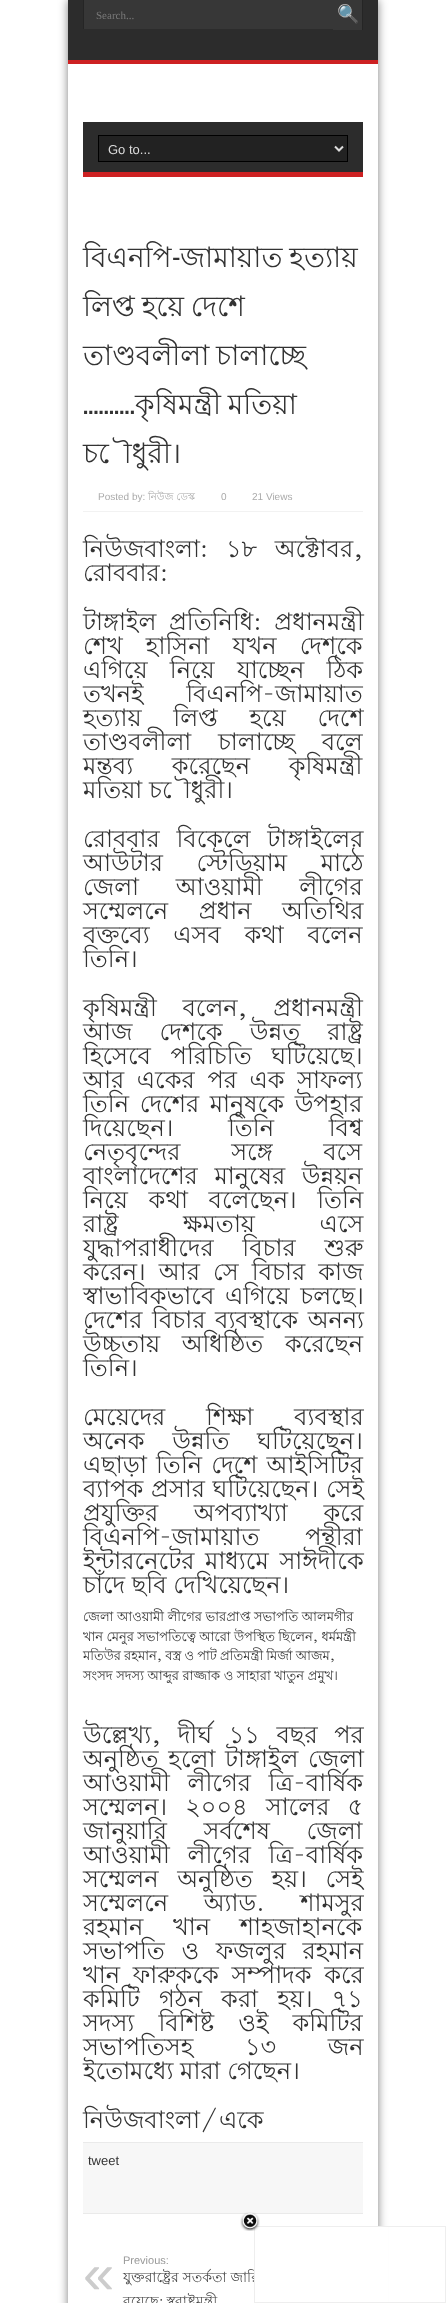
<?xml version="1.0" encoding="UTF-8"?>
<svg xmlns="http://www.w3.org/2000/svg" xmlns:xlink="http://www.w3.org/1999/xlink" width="446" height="2303">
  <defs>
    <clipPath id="clip1"><path d="M 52 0 h 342 v 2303 h -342 z m 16 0 h 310 v 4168 h -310 z" clip-rule="evenodd" /></clipPath>
  </defs>
  <rect width="100%" height="100%" fill="#ffffff" />
  <g clip-path="url(#clip1)">
    <rect x="68" width="310" height="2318" fill="#000000" fill-opacity="0.5" filter="blur(5px)" />
  </g>
  <rect x="68" width="310" height="60" fill="#2c2c2c" />
  <rect x="68" y="60" width="310" height="4" fill="#cd2122" />
  <rect x="84" width="249" height="29" fill="#373737" />
  <rect x="83" width="1" height="29" fill="#252525" />
  <rect x="333" width="29" height="30" fill="#373737" />
  <rect x="362" width="1" height="30" fill="#252525" />
  <rect x="83" y="122" width="280" height="50" fill="#2c2c2c" />
  <rect x="83" y="172" width="280" height="5" fill="#cd2122" />
  <rect x="98.5" y="135.5" width="249" height="26" fill="#222222" stroke="#000000" />
  <path d="M 335 146.5 l 4 4 l 4 -4" fill="none" stroke="#dddddd" stroke-width="2" />
  <rect x="83" y="511" width="280" height="1" fill="#f2f2f2" />
  <rect x="83" y="2143" width="280" height="70" fill="#f7f7f7" />
  <rect x="83" y="2142" width="280" height="1" fill="#eaeaea" />
  <rect x="83" y="2213" width="280" height="1" fill="#eaeaea" />
  <text x="96" y="19" style="font-family: Liberation Serif; font-size: 11px; fill: #787878">Search...</text>
  <text x="337" y="20" style="font-family: Noto Color Emoji; font-size: 18px; fill: #c0c0c0">🔍</text>
  <text x="108" y="154" style="font-family: Liberation Sans; font-size: 13px; fill: #dddddd">Go to...</text>
  <text x="83" y="267" style="font-family: Lohit Bengali; font-size: 28px; fill: #333333">বিএনপি</text>
  <text x="172" y="267" style="font-family: Oswald; font-size: 28px; fill: #333333">-</text>
  <text x="180" y="267" word-spacing="-1" style="font-family: Lohit Bengali; font-size: 28px; fill: #333333">জামায়াত হত্যায়</text>
  <text x="83" y="316" word-spacing="-1" style="font-family: Lohit Bengali; font-size: 28px; fill: #333333">লিপ্ত হয়ে দেশে</text>
  <text x="83" y="365" word-spacing="-1" style="font-family: Lohit Bengali; font-size: 28px; fill: #333333">তাণ্ডবলীলা চালাচ্ছে</text>
  <text x="83" y="414" style="font-family: Oswald; font-size: 28px; fill: #333333">……….</text>
  <text x="135" y="414" word-spacing="-1" style="font-family: Lohit Bengali; font-size: 28px; fill: #333333">কৃষিমন্ত্রী মতিয়া</text>
  <text x="83" y="463" style="font-family: Lohit Bengali; font-size: 28px; fill: #333333">চৌধুরী।</text>
  <text x="98" y="500" style="font-family: Liberation Sans; font-size: 10px; fill: #aaaaaa">Posted by:</text>
  <text x="148" y="500" style="font-family: Lohit Bengali; font-size: 10px; fill: #aaaaaa">নিউজ ডেস্ক</text>
  <text x="221" y="500" style="font-family: Liberation Sans; font-size: 10px; fill: #aaaaaa">0</text>
  <text x="252" y="500" style="font-family: Liberation Sans; font-size: 10px; fill: #aaaaaa">21 Views</text>
  <text x="83" y="557" word-spacing="11" style="font-family: Lohit Bengali; font-size: 24px; fill: #333333">নিউজবাংলা: ১৮ অক্টোবর,</text>
  <text x="83" y="581" style="font-family: Lohit Bengali; font-size: 24px; fill: #333333">রোববার:</text>
  <text x="83" y="630" word-spacing="6" style="font-family: Lohit Bengali; font-size: 24px; fill: #333333">টাঙ্গাইল প্রতিনিধি: প্রধানমন্ত্রী</text>
  <text x="83" y="654" word-spacing="16.5" style="font-family: Lohit Bengali; font-size: 24px; fill: #333333">শেখ হাসিনা যখন দেশকে</text>
  <text x="83" y="678" word-spacing="15.5" style="font-family: Lohit Bengali; font-size: 24px; fill: #333333">এগিয়ে নিয়ে যাচ্ছেন ঠিক</text>
  <text x="83" y="702" word-spacing="36" style="font-family: Lohit Bengali; font-size: 24px; fill: #333333">তখনই বিএনপি-জামায়াত</text>
  <text x="83" y="726" word-spacing="25" style="font-family: Lohit Bengali; font-size: 24px; fill: #333333">হত্যায় লিপ্ত হয়ে দেশে</text>
  <text x="83" y="750" word-spacing="20" style="font-family: Lohit Bengali; font-size: 24px; fill: #333333">তাণ্ডবলীলা চালাচ্ছে বলে</text>
  <text x="83" y="774" word-spacing="32" style="font-family: Lohit Bengali; font-size: 24px; fill: #333333">মন্তব্য করেছেন কৃষিমন্ত্রী</text>
  <text x="83" y="798" style="font-family: Lohit Bengali; font-size: 24px; fill: #333333">মতিয়া চৌধুরী।</text>
  <text x="83" y="847" word-spacing="10" style="font-family: Lohit Bengali; font-size: 24px; fill: #333333">রোববার বিকেলে টাঙ্গাইলের</text>
  <text x="83" y="871" word-spacing="27" style="font-family: Lohit Bengali; font-size: 24px; fill: #333333">আউটার স্টেডিয়াম মাঠে</text>
  <text x="83" y="895" word-spacing="30" style="font-family: Lohit Bengali; font-size: 24px; fill: #333333">জেলা আওয়ামী লীগের</text>
  <text x="83" y="919" word-spacing="24" style="font-family: Lohit Bengali; font-size: 24px; fill: #333333">সম্মেলনে প্রধান অতিথির</text>
  <text x="83" y="943" word-spacing="17" style="font-family: Lohit Bengali; font-size: 24px; fill: #333333">বক্তব্যে এসব কথা বলেন</text>
  <text x="83" y="967" style="font-family: Lohit Bengali; font-size: 24px; fill: #333333">তিনি।</text>
  <text x="83" y="1016" word-spacing="19" style="font-family: Lohit Bengali; font-size: 24px; fill: #333333">কৃষিমন্ত্রী বলেন, প্রধানমন্ত্রী</text>
  <text x="83" y="1040" word-spacing="20.5" style="font-family: Lohit Bengali; font-size: 24px; fill: #333333">আজ দেশকে উন্নত রাষ্ট্র</text>
  <text x="83" y="1064" word-spacing="13" style="font-family: Lohit Bengali; font-size: 24px; fill: #333333">হিসেবে পরিচিতি ঘটিয়েছে।</text>
  <text x="83" y="1088" word-spacing="6" style="font-family: Lohit Bengali; font-size: 24px; fill: #333333">আর একের পর এক সাফল্য</text>
  <text x="83" y="1112" word-spacing="4" style="font-family: Lohit Bengali; font-size: 24px; fill: #333333">তিনি দেশের মানুষকে উপহার</text>
  <text x="83" y="1136" word-spacing="48" style="font-family: Lohit Bengali; font-size: 24px; fill: #333333">দিয়েছেন। তিনি বিশ্ব</text>
  <text x="83" y="1160" word-spacing="44" style="font-family: Lohit Bengali; font-size: 24px; fill: #333333">নেতৃবৃন্দের সঙ্গে বসে</text>
  <text x="83" y="1184" word-spacing="10" style="font-family: Lohit Bengali; font-size: 24px; fill: #333333">বাংলাদেশের মানুষের উন্নয়ন</text>
  <text x="83" y="1208" word-spacing="14" style="font-family: Lohit Bengali; font-size: 24px; fill: #333333">নিয়ে কথা বলেছেন। তিনি</text>
  <text x="83" y="1232" word-spacing="58" style="font-family: Lohit Bengali; font-size: 24px; fill: #333333">রাষ্ট্র ক্ষমতায় এসে</text>
  <text x="83" y="1256" word-spacing="22" style="font-family: Lohit Bengali; font-size: 24px; fill: #333333">যুদ্ধাপরাধীদের বিচার শুরু</text>
  <text x="83" y="1280" word-spacing="6.5" style="font-family: Lohit Bengali; font-size: 24px; fill: #333333">করেন। আর সে বিচার কাজ</text>
  <text x="83" y="1304" word-spacing="4" style="font-family: Lohit Bengali; font-size: 24px; fill: #333333">স্বাভাবিকভাবে এগিয়ে চলছে।</text>
  <text x="83" y="1328" word-spacing="3" style="font-family: Lohit Bengali; font-size: 24px; fill: #333333">দেশের বিচার ব্যবস্থাকে অনন্য</text>
  <text x="83" y="1352" word-spacing="15" style="font-family: Lohit Bengali; font-size: 24px; fill: #333333">উচ্চতায় অধিষ্ঠিত করেছেন</text>
  <text x="83" y="1376" style="font-family: Lohit Bengali; font-size: 24px; fill: #333333">তিনি।</text>
  <text x="83" y="1425" word-spacing="34" style="font-family: Lohit Bengali; font-size: 24px; fill: #333333">মেয়েদের শিক্ষা ব্যবস্থার</text>
  <text x="83" y="1449" word-spacing="21" style="font-family: Lohit Bengali; font-size: 24px; fill: #333333">অনেক উন্নতি ঘটিয়েছেন।</text>
  <text x="83" y="1473" word-spacing="2.5" style="font-family: Lohit Bengali; font-size: 24px; fill: #333333">এছাড়া তিনি দেশে আইসিটির</text>
  <text x="83" y="1497" word-spacing="1" style="font-family: Lohit Bengali; font-size: 24px; fill: #333333">ব্যাপক প্রসার ঘটিয়েছেন। সেই</text>
  <text x="83" y="1521" word-spacing="29" style="font-family: Lohit Bengali; font-size: 24px; fill: #333333">প্রযুক্তির অপব্যাখ্যা করে</text>
  <text x="83" y="1545" word-spacing="39" style="font-family: Lohit Bengali; font-size: 24px; fill: #333333">বিএনপি-জামায়াত পন্থীরা</text>
  <text x="83" y="1569" word-spacing="4" style="font-family: Lohit Bengali; font-size: 24px; fill: #333333">ইন্টারনেটের মাধ্যমে সাঈদীকে</text>
  <text x="83" y="1593" style="font-family: Lohit Bengali; font-size: 24px; fill: #333333">চাঁদে ছবি দেখিয়েছেন।</text>
  <text x="83" y="1621" style="font-family: Lohit Bengali; font-size: 13px; fill: #333333">জেলা আওয়ামী লীগের ভারপ্রাপ্ত সভাপতি আলমগীর</text>
  <text x="83" y="1641" word-spacing="-0.25" style="font-family: Lohit Bengali; font-size: 13px; fill: #333333">খান মেনুর সভাপতিত্বে আরো উপস্থিত ছিলেন, ধর্মমন্ত্রী</text>
  <text x="83" y="1660" word-spacing="-0.5" style="font-family: Lohit Bengali; font-size: 13px; fill: #333333">মতিউর রহমান, বস্ত্র ও পাট প্রতিমন্ত্রী মির্জা আজম,</text>
  <text x="83" y="1680" style="font-family: Lohit Bengali; font-size: 13px; fill: #333333">সংসদ সদস্য আব্দুর রাজ্জাক ও সাহারা খাতুন প্রমুখ।</text>
  <text x="83" y="1743" word-spacing="10" style="font-family: Lohit Bengali; font-size: 24px; fill: #333333">উল্লেখ্য, দীর্ঘ ১১ বছর পর</text>
  <text x="83" y="1767" word-spacing="3" style="font-family: Lohit Bengali; font-size: 24px; fill: #333333">অনুষ্ঠিত হলো টাঙ্গাইল জেলা</text>
  <text x="83" y="1791" word-spacing="11" style="font-family: Lohit Bengali; font-size: 24px; fill: #333333">আওয়ামী লীগের ত্রি-বার্ষিক</text>
  <text x="83" y="1815" word-spacing="11.5" style="font-family: Lohit Bengali; font-size: 24px; fill: #333333">সম্মেলন। ২০০৪ সালের ৫</text>
  <text x="83" y="1839" word-spacing="30" style="font-family: Lohit Bengali; font-size: 24px; fill: #333333">জানুয়ারি সর্বশেষ জেলা</text>
  <text x="83" y="1863" word-spacing="11" style="font-family: Lohit Bengali; font-size: 24px; fill: #333333">আওয়ামী লীগের ত্রি-বার্ষিক</text>
  <text x="83" y="1887" word-spacing="12" style="font-family: Lohit Bengali; font-size: 24px; fill: #333333">সম্মেলন অনুষ্ঠিত হয়। সেই</text>
  <text x="83" y="1911" word-spacing="29" style="font-family: Lohit Bengali; font-size: 24px; fill: #333333">সম্মেলনে অ্যাড. শামসুর</text>
  <text x="83" y="1935" word-spacing="23" style="font-family: Lohit Bengali; font-size: 24px; fill: #333333">রহমান খান শাহজাহানকে</text>
  <text x="83" y="1959" word-spacing="10" style="font-family: Lohit Bengali; font-size: 24px; fill: #333333">সভাপতি ও ফজলুর রহমান</text>
  <text x="83" y="1983" word-spacing="6" style="font-family: Lohit Bengali; font-size: 24px; fill: #333333">খান ফারুককে সম্পাদক করে</text>
  <text x="83" y="2007" word-spacing="12.5" style="font-family: Lohit Bengali; font-size: 24px; fill: #333333">কমিটি গঠন করা হয়। ৭১</text>
  <text x="83" y="2031" word-spacing="17.5" style="font-family: Lohit Bengali; font-size: 24px; fill: #333333">সদস্য বিশিষ্ট ওই কমিটির</text>
  <text x="83" y="2055" word-spacing="45" style="font-family: Lohit Bengali; font-size: 24px; fill: #333333">সভাপতিসহ ১৩ জন</text>
  <text x="83" y="2079" style="font-family: Lohit Bengali; font-size: 24px; fill: #333333">ইতোমধ্যে মারা গেছেন।</text>
  <text x="83" y="2128" style="font-family: Lohit Bengali; font-size: 24px; fill: #333333">নিউজবাংলা/একে</text>
  <text x="88" y="2165" style="font-family: Liberation Sans; font-size: 13px; fill: #333333">tweet</text>
  <text x="123" y="2264" style="font-family: Liberation Sans; font-size: 11px; fill: #999999">Previous:</text>
  <text x="83" y="2293" style="font-family: Liberation Sans; font-size: 56px; fill: #cccccc">«</text>
  <text x="123" y="2282" style="font-family: Lohit Bengali; font-size: 14px; fill: #444444">যুক্তরাষ্ট্রের সতর্কতা জারি</text>
  <text x="123" y="2306" word-spacing="-1" style="font-family: Lohit Bengali; font-size: 14px; fill: #444444">রয়েছে: স্বরাষ্ট্রমন্ত্রী</text>
  <rect x="255" y="2227" width="133" height="75" fill="#ffffff" />
  <rect x="254.5" y="2226.5" width="191" height="76" fill="none" stroke="#eeeeee" />
  <image x="240" y="2212" width="20" height="19" xlink:href="image1.png" />
</svg>
